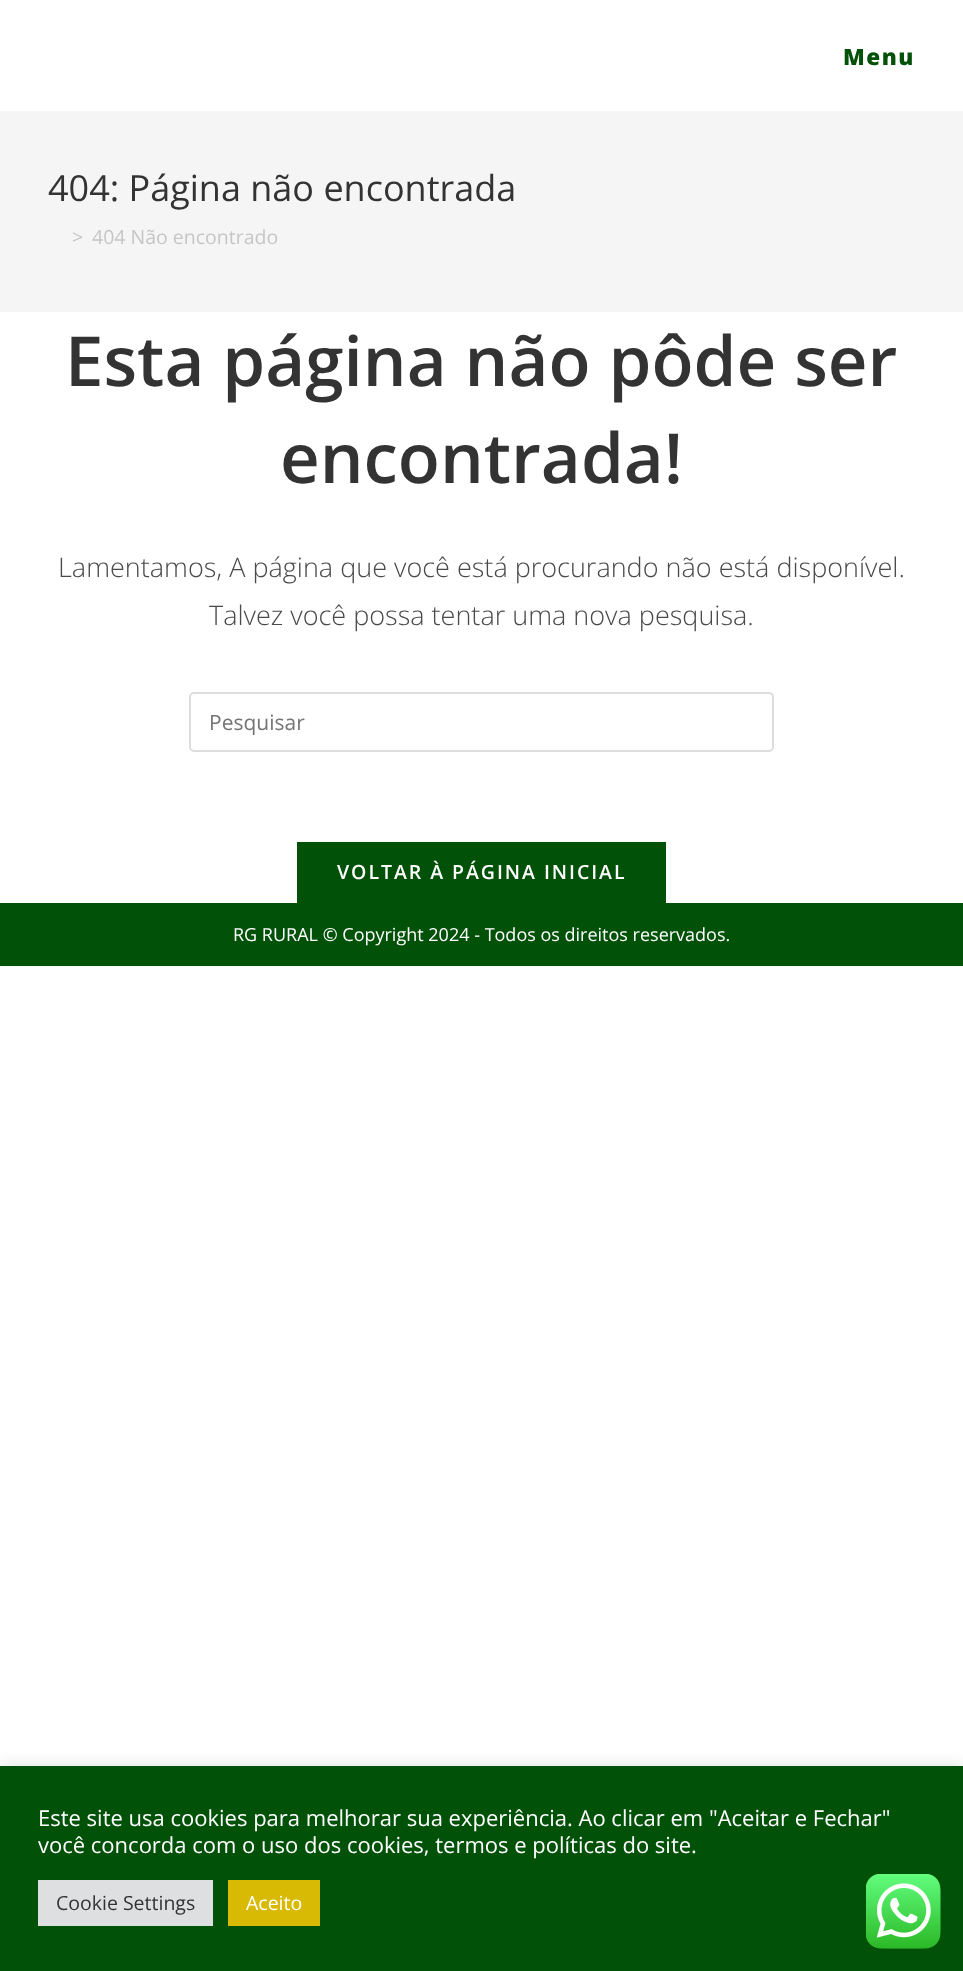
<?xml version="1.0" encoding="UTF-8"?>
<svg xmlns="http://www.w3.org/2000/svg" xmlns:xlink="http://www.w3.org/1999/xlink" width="963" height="1971">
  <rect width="100%" height="100%" fill="#ffffff" />
  <rect y="111" width="963" height="201" fill="#f5f5f5" />
  <rect x="190" y="693" width="583" height="58" rx="4" fill="none" stroke="#dddddd" stroke-width="2" />
  <rect x="297" y="842" width="369" height="61" fill="#025108" />
  <rect y="903" width="963" height="63" fill="#025108" />
  <rect y="1764" width="963" height="206" fill="#acabab" fill-opacity="0.3" filter="blur(7.5px)" />
  <rect y="1766" width="963" height="205" fill="#025108" />
  <rect x="38" y="1880" width="175" height="46" fill="#dedfe0" />
  <rect x="228" y="1880" width="92" height="46" fill="#d8ba05" />
  <image x="866" y="1874" width="75" height="75" xlink:href="image1.png" />
  <text x="843" y="65" style="font-family: Open Sans; font-size: 22.5px; font-weight: 800; letter-spacing: 1.5px; fill: #025108">Menu</text>
  <text x="48" y="201" style="font-family: Open Sans; font-size: 36px; fill: #333333">404: Página não encontrada</text>
  <text x="72" y="244" style="font-family: Open Sans; font-size: 19.5px; fill: #c6c6c6">&gt;</text>
  <text x="92" y="244" style="font-family: Open Sans; font-size: 19.5px; fill: #c6c6c6">404 Não encontrado</text>
  <text x="65" y="386" style="font-family: Open Sans; font-size: 69px; font-weight: 600; fill: #333333">Esta página não pôde ser</text>
  <text x="280" y="483" style="font-family: Open Sans; font-size: 69px; font-weight: 600; fill: #333333">encontrada!</text>
  <text x="58" y="577" style="font-family: Open Sans; font-size: 27px; font-weight: 300; fill: #4a4a4a">Lamentamos, A página que você está procurando não está disponível.</text>
  <text x="209" y="625" style="font-family: Open Sans; font-size: 27px; font-weight: 300; fill: #4a4a4a">Talvez você possa tentar uma nova pesquisa.</text>
  <text x="209" y="730" style="font-family: Open Sans; font-size: 21px; fill: #757575">Pesquisar</text>
  <text x="337" y="879" style="font-family: Open Sans; font-size: 19.5px; font-weight: 600; letter-spacing: 1.95px; fill: #ffffff">VOLTAR À PÁGINA INICIAL</text>
  <text x="233" y="941" style="font-family: Open Sans; font-size: 18px; fill: #ffffff">RG RURAL © Copyright 2024 - Todos os direitos reservados.</text>
  <text x="38" y="1826" style="font-family: Open Sans; font-size: 22px; fill: #ffffff">Este site usa cookies para melhorar sua experiência. Ao clicar em "Aceitar e Fechar"</text>
  <text x="38" y="1853" style="font-family: Open Sans; font-size: 22px; fill: #ffffff">você concorda com o uso dos cookies, termos e políticas do site.</text>
  <text x="56" y="1910" style="font-family: Open Sans; font-size: 19.5px; fill: #333333">Cookie Settings</text>
  <text x="246" y="1910" style="font-family: Open Sans; font-size: 19.5px; fill: #ffffff">Aceito</text>
</svg>
